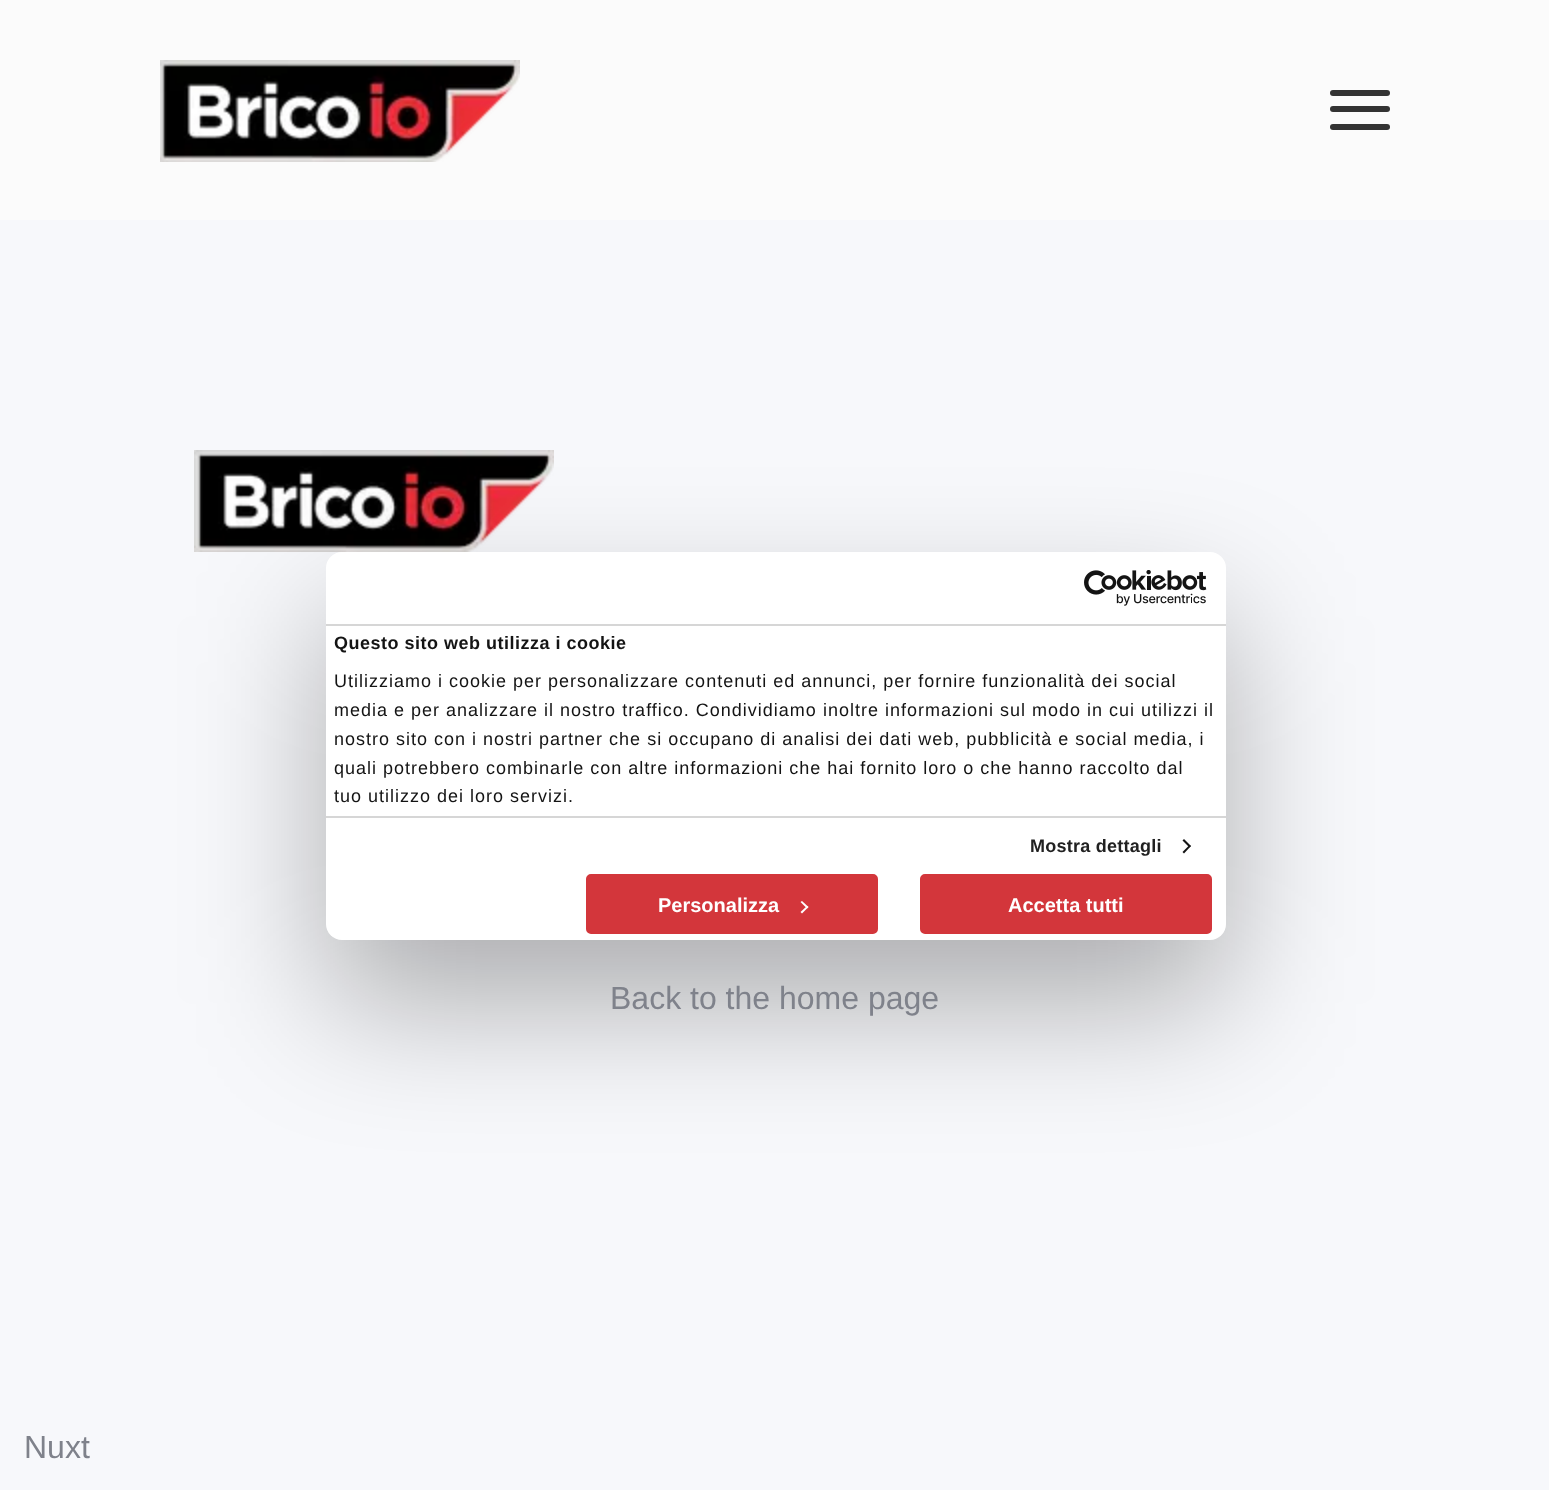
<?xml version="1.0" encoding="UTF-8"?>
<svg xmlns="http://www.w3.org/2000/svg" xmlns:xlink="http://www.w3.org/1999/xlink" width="1549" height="1490">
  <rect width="100%" height="100%" fill="#fbfbfb" />
  <rect y="220" width="1549" height="1270" fill="#f7f8fb" />
  <image x="194" y="450" width="360" height="102" xlink:href="image3.png" />
  <rect x="326" y="616" width="900" height="388" rx="16" fill="#000000" fill-opacity="0.3" filter="blur(68px)" />
  <rect x="326" y="552" width="900" height="388" rx="16" fill="#ffffff" />
  <rect x="326" y="624" width="900" height="2" fill="#d6d6d6" />
  <image x="1084" y="570" width="123" height="36" xlink:href="image1.png" />
  <rect x="326" y="816" width="900" height="2" fill="#d6d6d6" />
  <path d="M 1184 839 l 7 7 l -1.5 1.5 l -7 -7 z" fill="#141414" />
  <path d="M 1189.5 845 l 1.5 1 l -7 7.5 l -1.5 -1.5 z" fill="#141414" />
  <rect x="587" y="875" width="290" height="58" rx="4" fill="#d3363b" stroke="#d3363b" stroke-width="2" />
  <path d="M 802 901 l 6.5 6 l -1.5 1.5 l -6.5 -6.5 z" fill="#ffffff" />
  <path d="M 807 906 l 1.5 1 l -6.5 6.5 l -1.5 -1.5 z" fill="#ffffff" />
  <rect x="921" y="875" width="290" height="58" rx="4" fill="#d3363b" stroke="#d3363b" stroke-width="2" />
  <image x="160" y="60" width="360" height="102" xlink:href="image2.png" />
  <rect x="1330" y="90" width="60" height="6" rx="3" fill="#333333" />
  <rect x="1330" y="106" width="60" height="6" rx="3" fill="#333333" />
  <rect x="1330" y="124" width="60" height="6" rx="3" fill="#333333" />
  <text x="334" y="649" style="font-family: Liberation Sans; font-size: 18px; font-weight: bold; letter-spacing: 0.5px; fill: #141414">Questo sito web utilizza i cookie</text>
  <text x="334" y="687" style="font-family: Liberation Sans; font-size: 18px; letter-spacing: 1px; fill: #141414">Utilizziamo i cookie per personalizzare contenuti ed annunci, per fornire funzionalità dei social</text>
  <text x="334" y="716" style="font-family: Liberation Sans; font-size: 18px; letter-spacing: 1px; fill: #141414">media e per analizzare il nostro traffico. Condividiamo inoltre informazioni sul modo in cui utilizzi il</text>
  <text x="334" y="745" style="font-family: Liberation Sans; font-size: 18px; letter-spacing: 1px; fill: #141414">nostro sito con i nostri partner che si occupano di analisi dei dati web, pubblicità e social media, i</text>
  <text x="334" y="774" style="font-family: Liberation Sans; font-size: 18px; letter-spacing: 1px; fill: #141414">quali potrebbero combinarle con altre informazioni che hai fornito loro o che hanno raccolto dal</text>
  <text x="334" y="802" style="font-family: Liberation Sans; font-size: 18px; letter-spacing: 1px; fill: #141414">tuo utilizzo dei loro servizi.</text>
  <text x="1030" y="852" style="font-family: Liberation Sans; font-size: 18px; font-weight: bold; letter-spacing: 0.25px; fill: #212121">Mostra dettagli</text>
  <text x="658" y="912" style="font-family: Liberation Sans; font-size: 20px; font-weight: bold; fill: #ffffff">Personalizza</text>
  <text x="1008" y="912" style="font-family: Liberation Sans; font-size: 20px; font-weight: bold; fill: #ffffff">Accetta tutti</text>
  <text x="610" y="1009" style="font-family: Liberation Sans; font-size: 32px; fill: #7f828b">Back to the home page</text>
  <text x="24" y="1458" style="font-family: Liberation Sans; font-size: 32px; fill: #7f828b">Nuxt</text>
</svg>
